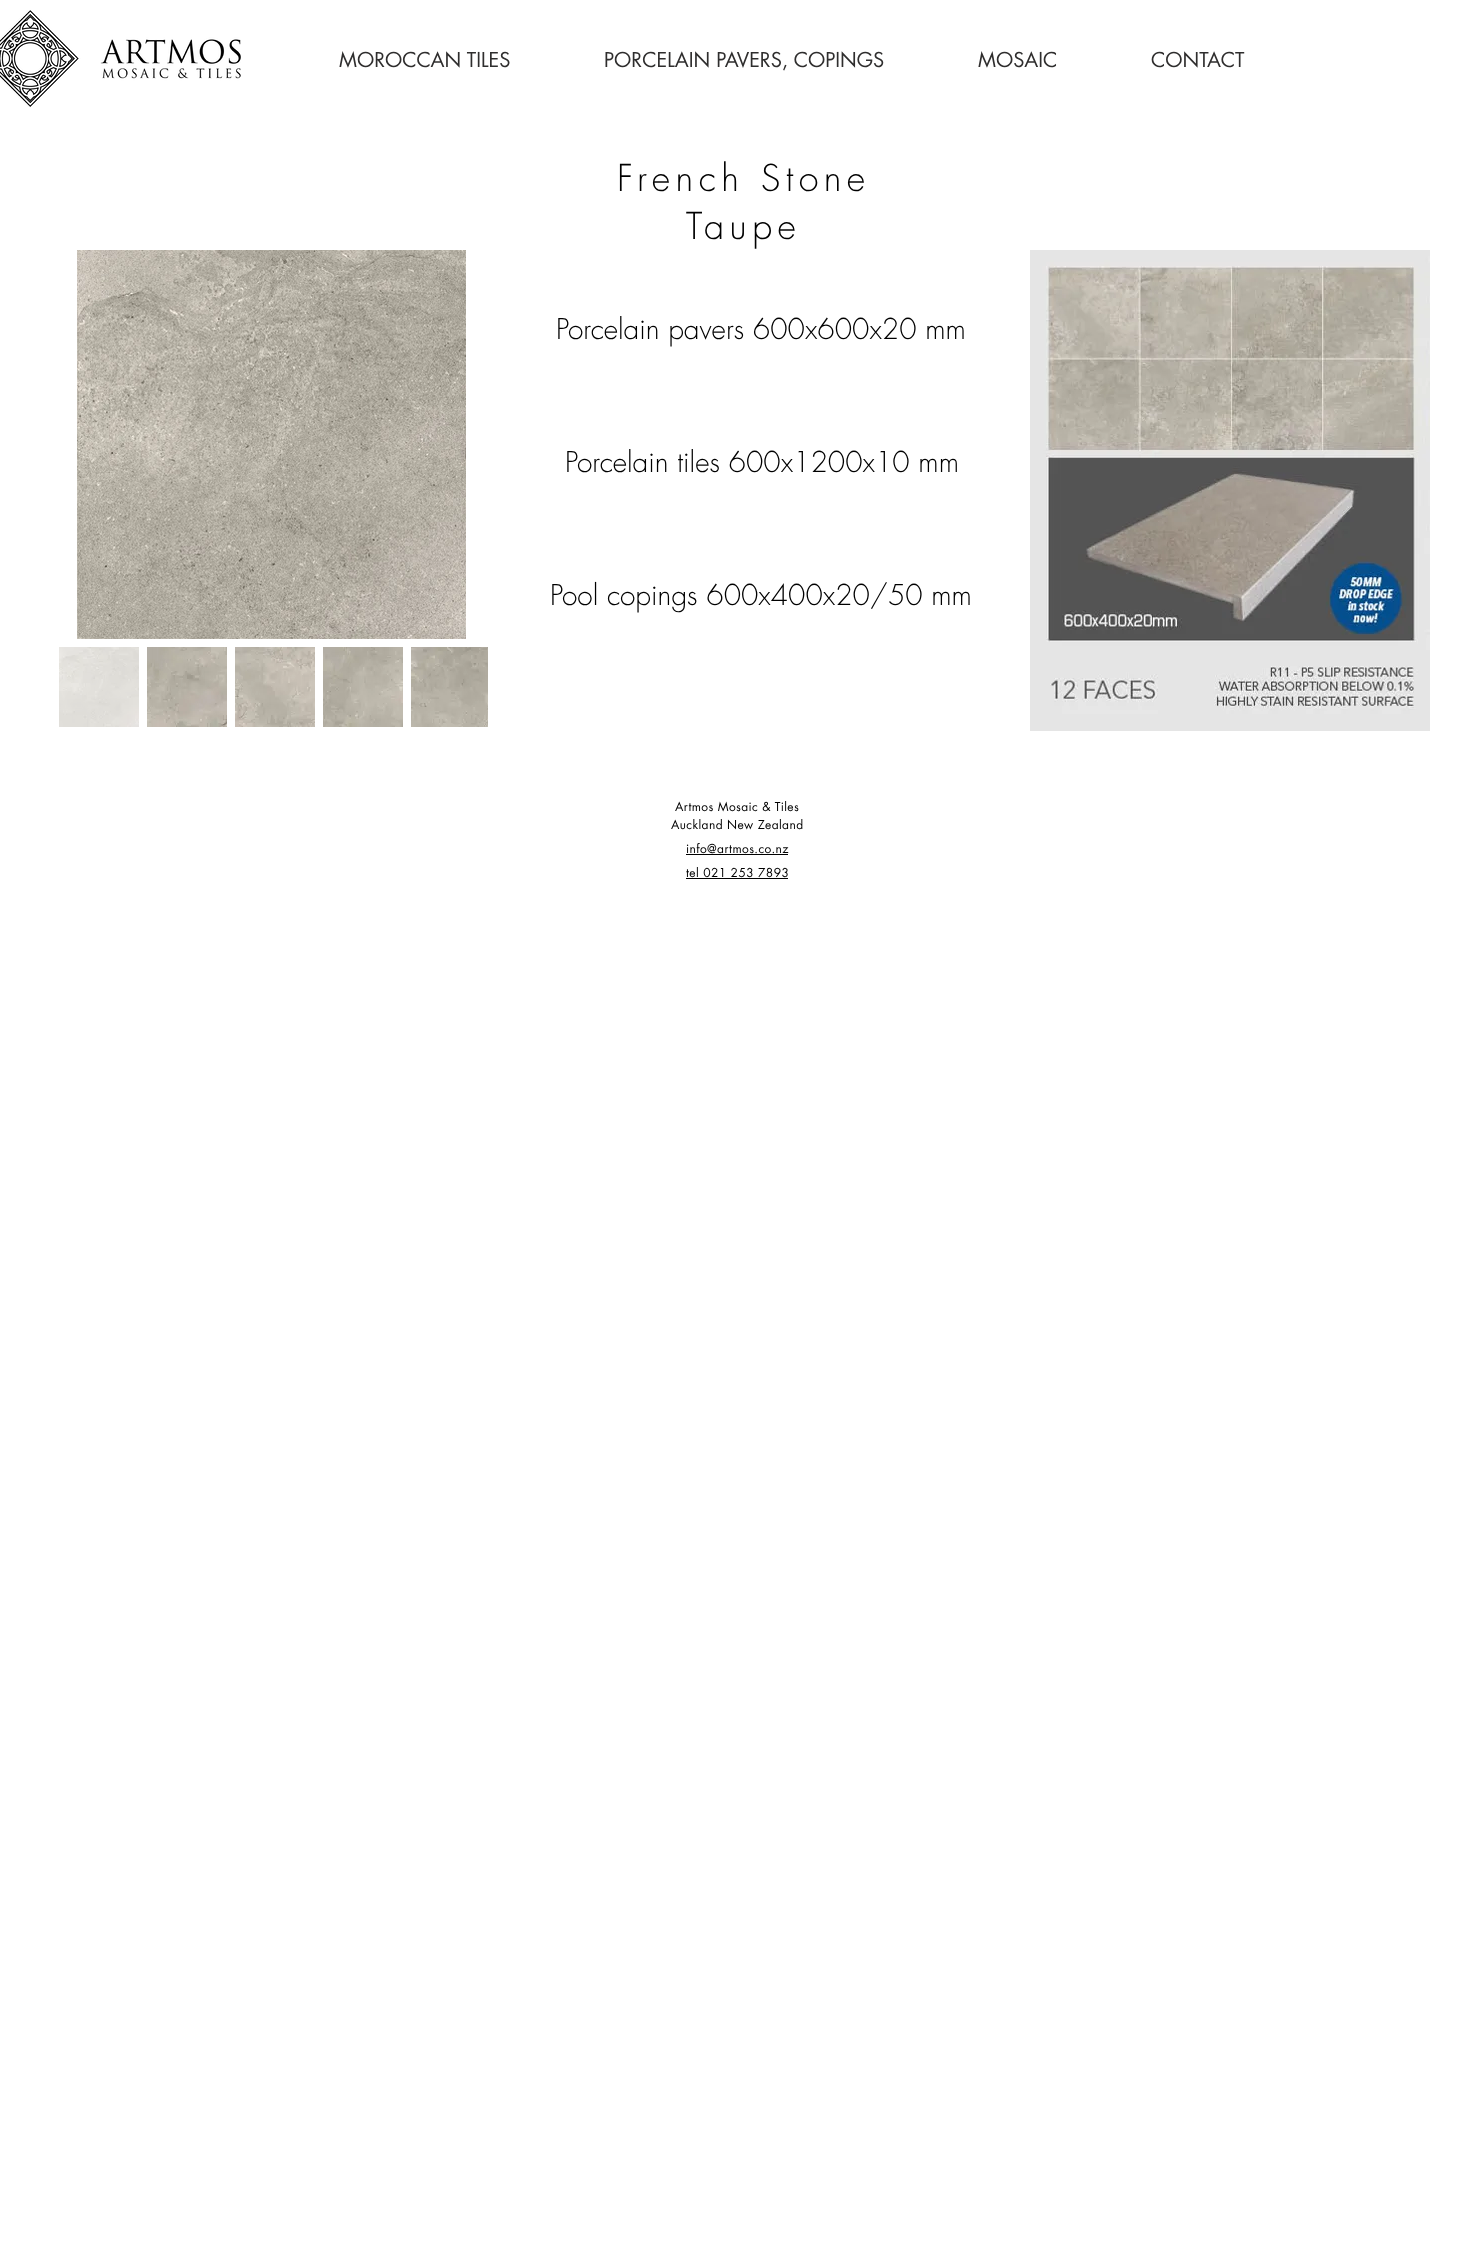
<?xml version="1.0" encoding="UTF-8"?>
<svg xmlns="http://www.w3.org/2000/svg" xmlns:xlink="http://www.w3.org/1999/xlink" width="1484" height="2243">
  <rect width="100%" height="100%" fill="#ffffff" />
  <image x="0" y="10" width="241" height="97" xlink:href="image1.png" />
  <image x="77" y="250" width="389" height="389" xlink:href="image2.png" />
  <image x="59" y="647" width="80" height="80" xlink:href="image3.png" />
  <image x="147" y="647" width="80" height="80" xlink:href="image4.png" />
  <image x="235" y="647" width="80" height="80" xlink:href="image5.png" />
  <image x="323" y="647" width="80" height="80" xlink:href="image6.png" />
  <image x="411" y="647" width="77" height="80" xlink:href="image7.png" />
  <image x="1030" y="250" width="400" height="481" xlink:href="image8.png" />
  <rect x="686" y="854" width="102" height="1" fill="#000000" />
  <rect x="686" y="878" width="102" height="1" fill="#000000" />
  <text x="339" y="67" style="font-family: futura; font-size: 20px; fill: #2f2e2e">MOROCCAN TILES</text>
  <text x="604" y="67" style="font-family: futura; font-size: 20px; fill: #2f2e2e">PORCELAIN PAVERS, COPINGS</text>
  <text x="978" y="67" style="font-family: futura; font-size: 20px; fill: #2f2e2e">MOSAIC</text>
  <text x="1151" y="67" style="font-family: futura; font-size: 20px; fill: #2f2e2e">CONTACT</text>
  <text x="617" y="191" style="font-family: futura; font-size: 36px; font-weight: 300; letter-spacing: 5.4px; fill: #000000">French Stone</text>
  <text x="686" y="239" style="font-family: futura; font-size: 36px; font-weight: 300; letter-spacing: 5.4px; fill: #000000">Taupe</text>
  <text x="556" y="339" style="font-family: futura; font-size: 28px; font-weight: 300; fill: #000000">Porcelain pavers 600x600x20 mm</text>
  <text x="550" y="605" style="font-family: futura; font-size: 28px; font-weight: 300; fill: #000000">Pool copings 600x400x20/50 mm</text>
  <text x="565" y="472" style="font-family: futura; font-size: 28px; font-weight: 300; fill: #000000">Porcelain tiles 600x1200x10 mm</text>
  <text x="675" y="811" style="font-family: futura; font-size: 12px; letter-spacing: 0.4px; fill: #000000">Artmos Mosaic &amp; Tiles</text>
  <text x="671" y="829" style="font-family: futura; font-size: 12px; letter-spacing: 0.4px; fill: #000000">Auckland New Zealand</text>
  <text x="686" y="853" style="font-family: futura; font-size: 12px; letter-spacing: 0.4px; fill: #000000">info@artmos.co.nz</text>
  <text x="686" y="877" style="font-family: futura; font-size: 12px; letter-spacing: 0.4px; fill: #000000">tel 021 253 7893</text>
</svg>
